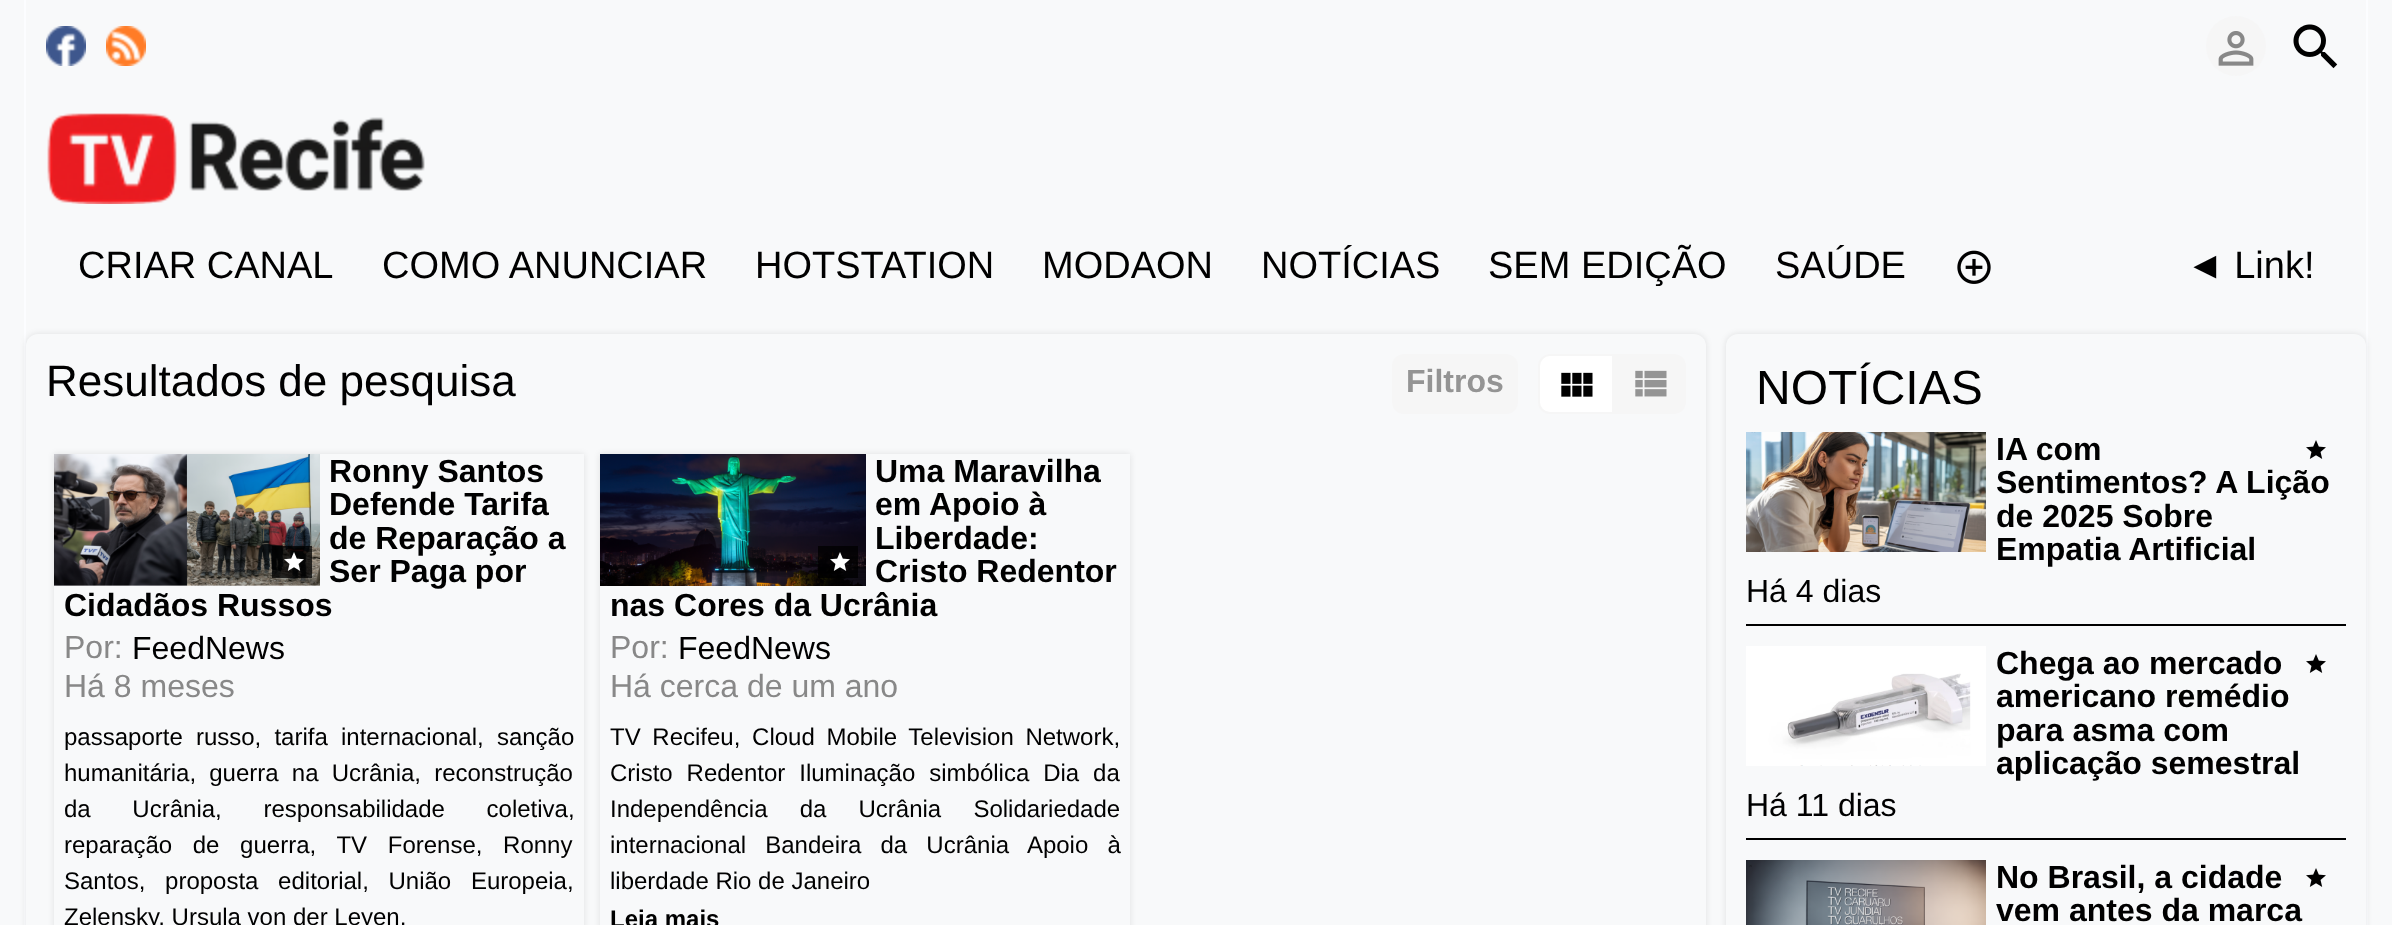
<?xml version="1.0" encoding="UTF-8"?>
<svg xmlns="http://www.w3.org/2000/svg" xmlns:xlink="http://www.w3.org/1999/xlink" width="2392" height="925">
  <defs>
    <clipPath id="clip1"><path d="M 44 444 h 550 v 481 h -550 z m 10 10 h 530 v 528 h -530 z" clip-rule="evenodd" /></clipPath>
    <clipPath id="clip2"><path d="M 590 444 h 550 v 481 h -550 z m 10 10 h 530 v 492 h -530 z" clip-rule="evenodd" /></clipPath>
  </defs>
  <rect width="100%" height="100%" fill="#f8f9fa" />
  <rect x="2366" width="2" height="925" fill="#fcfdff" />
  <rect x="24" width="2" height="925" fill="#fcfdff" />
  <image x="46" y="26" width="40" height="40" xlink:href="image1.png" />
  <image x="106" y="26" width="40" height="40" xlink:href="image2.png" />
  <circle cx="2236" cy="46" r="30" fill="#f6f6f6" />
  <image x="2218" y="31" width="36" height="35" xlink:href="image3.png" />
  <image x="2293" y="24" width="45" height="45" xlink:href="image4.png" />
  <image x="47" y="113" width="378" height="91" xlink:href="image5.png" />
  <image x="1957" y="250" width="34" height="34" xlink:href="image6.png" />
  <rect x="26" y="334" width="1680" height="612" rx="12" fill="#000000" fill-opacity="0.1" filter="blur(3px)" />
  <rect x="26" y="334" width="1680" height="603" rx="12" fill="#f8f9fa" />
  <rect x="1392" y="354" width="126" height="60" rx="12" fill="#f6f6f6" />
  <path d="M 1550 355 h 63 v 58 h -63 c -6 0 -11 -5 -11 -11 v -36 c 0 -6 5 -11 11 -11 z" fill="#ffffff" stroke="#f6f6f6" stroke-width="2" />
  <image x="1561" y="372" width="32" height="25" xlink:href="image7.png" />
  <path d="M 1614 354 h 60 c 6.5 0 12 5.5 12 12 v 36 c 0 6.5 -5.5 12 -12 12 h -60 z" fill="#f6f6f6" />
  <image x="1635" y="370" width="32" height="27" xlink:href="image8.png" />
  <g clip-path="url(#clip1)">
    <rect x="54" y="454" width="530" height="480" fill="#000000" fill-opacity="0.1" filter="blur(3px)" />
  </g>
  <image x="54" y="454" width="266" height="132" xlink:href="image9.png" />
  <rect x="272" y="546" width="40" height="32" fill="#000000" fill-opacity="0.75" />
  <image x="284" y="552" width="20" height="19" xlink:href="image10.png" />
  <g clip-path="url(#clip2)">
    <rect x="600" y="454" width="530" height="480" fill="#000000" fill-opacity="0.1" filter="blur(3px)" />
  </g>
  <image x="600" y="454" width="266" height="132" xlink:href="image11.png" />
  <rect x="818" y="546" width="40" height="32" fill="#000000" fill-opacity="0.75" />
  <image x="830" y="552" width="20" height="19" xlink:href="image12.png" />
  <rect x="1726" y="334" width="640" height="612" rx="12" fill="#000000" fill-opacity="0.1" filter="blur(3px)" />
  <rect x="1726" y="334" width="640" height="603" rx="12" fill="#f8f9fa" />
  <rect x="1746" y="624" width="600" height="2" fill="#000000" />
  <image x="1746" y="432" width="240" height="120" xlink:href="image13.png" />
  <image x="2306" y="440" width="20" height="19" xlink:href="image14.png" />
  <rect x="1746" y="838" width="600" height="2" fill="#000000" />
  <image x="1746" y="646" width="240" height="120" xlink:href="image15.png" />
  <image x="2306" y="654" width="20" height="19" xlink:href="image14.png" />
  <image x="1746" y="860" width="240" height="65" xlink:href="image16.png" />
  <image x="2306" y="868" width="20" height="19" xlink:href="image14.png" />
  <text x="78" y="278" style="font-family: Liberation Sans; font-size: 38px; fill: #000000">CRIAR CANAL</text>
  <text x="382" y="278" style="font-family: Liberation Sans; font-size: 38px; fill: #000000">COMO ANUNCIAR</text>
  <text x="755" y="278" style="font-family: Liberation Sans; font-size: 38px; fill: #000000">HOTSTATION</text>
  <text x="1042" y="278" style="font-family: Liberation Sans; font-size: 38px; fill: #000000">MODAON</text>
  <text x="1261" y="278" style="font-family: Liberation Sans; font-size: 38px; fill: #000000">NOTÍCIAS</text>
  <text x="1488" y="278" style="font-family: Liberation Sans; font-size: 38px; fill: #000000">SEM EDIÇÃO</text>
  <text x="1775" y="278" style="font-family: Liberation Sans; font-size: 38px; fill: #000000">SAÚDE</text>
  <text x="2186" y="278" style="font-family: Liberation Sans; font-size: 38px; fill: #000000">◄ Link!</text>
  <text x="46" y="396" style="font-family: Liberation Sans; font-size: 44px; fill: #000000">Resultados de pesquisa</text>
  <text x="1406" y="392" style="font-family: Liberation Sans; font-size: 32px; font-weight: bold; fill: #949494">Filtros</text>
  <text x="329" y="482" style="font-family: Liberation Sans; font-size: 32px; font-weight: bold; fill: #000000">Ronny Santos</text>
  <text x="329" y="515" style="font-family: Liberation Sans; font-size: 32px; font-weight: bold; fill: #000000">Defende Tarifa</text>
  <text x="329" y="549" style="font-family: Liberation Sans; font-size: 32px; font-weight: bold; fill: #000000">de Reparação a</text>
  <text x="329" y="582" style="font-family: Liberation Sans; font-size: 32px; font-weight: bold; fill: #000000">Ser Paga por</text>
  <text x="64" y="616" style="font-family: Liberation Sans; font-size: 32px; font-weight: bold; fill: #000000">Cidadãos Russos</text>
  <text x="64" y="658" style="font-family: Liberation Sans; font-size: 32px; fill: #888888">Por:</text>
  <text x="132" y="659" style="font-family: Liberation Sans; font-size: 32px; fill: #000000">FeedNews</text>
  <text x="64" y="697" style="font-family: Liberation Sans; font-size: 32px; fill: #888888">Há 8 meses</text>
  <text x="64" y="745" word-spacing="6.5" style="font-family: Liberation Sans; font-size: 24px; fill: #000000">passaporte russo, tarifa internacional, sanção</text>
  <text x="64" y="781" word-spacing="6.5" style="font-family: Liberation Sans; font-size: 24px; fill: #000000">humanitária, guerra na Ucrânia, reconstrução</text>
  <text x="64" y="817" word-spacing="35" style="font-family: Liberation Sans; font-size: 24px; fill: #000000">da Ucrânia, responsabilidade coletiva,</text>
  <text x="64" y="853" word-spacing="14" style="font-family: Liberation Sans; font-size: 24px; fill: #000000">reparação de guerra, TV Forense, Ronny</text>
  <text x="64" y="889" word-spacing="13" style="font-family: Liberation Sans; font-size: 24px; fill: #000000">Santos, proposta editorial, União Europeia,</text>
  <text x="64" y="925" style="font-family: Liberation Sans; font-size: 24px; fill: #000000">Zelensky, Ursula von der Leyen,</text>
  <text x="875" y="482" style="font-family: Liberation Sans; font-size: 32px; font-weight: bold; fill: #000000">Uma Maravilha</text>
  <text x="875" y="515" style="font-family: Liberation Sans; font-size: 32px; font-weight: bold; fill: #000000">em Apoio à</text>
  <text x="875" y="549" style="font-family: Liberation Sans; font-size: 32px; font-weight: bold; fill: #000000">Liberdade:</text>
  <text x="875" y="582" style="font-family: Liberation Sans; font-size: 32px; font-weight: bold; fill: #000000">Cristo Redentor</text>
  <text x="610" y="616" style="font-family: Liberation Sans; font-size: 32px; font-weight: bold; fill: #000000">nas Cores da Ucrânia</text>
  <text x="610" y="658" style="font-family: Liberation Sans; font-size: 32px; fill: #888888">Por:</text>
  <text x="678" y="659" style="font-family: Liberation Sans; font-size: 32px; fill: #000000">FeedNews</text>
  <text x="610" y="697" style="font-family: Liberation Sans; font-size: 32px; fill: #888888">Há cerca de um ano</text>
  <text x="610" y="745" word-spacing="5" style="font-family: Liberation Sans; font-size: 24px; fill: #000000">TV Recifeu, Cloud Mobile Television Network,</text>
  <text x="610" y="781" word-spacing="7.25" style="font-family: Liberation Sans; font-size: 24px; fill: #000000">Cristo Redentor Iluminação simbólica Dia da</text>
  <text x="610" y="817" word-spacing="25.5" style="font-family: Liberation Sans; font-size: 24px; fill: #000000">Independência da Ucrânia Solidariedade</text>
  <text x="610" y="853" word-spacing="12.5" style="font-family: Liberation Sans; font-size: 24px; fill: #000000">internacional Bandeira da Ucrânia Apoio à</text>
  <text x="610" y="889" style="font-family: Liberation Sans; font-size: 24px; fill: #000000">liberdade Rio de Janeiro</text>
  <text x="610" y="927" style="font-family: Liberation Sans; font-size: 24px; font-weight: bold; fill: #000000">Leia mais</text>
  <text x="1756" y="404" style="font-family: Liberation Sans; font-size: 48px; fill: #000000">NOTÍCIAS</text>
  <text x="1996" y="460" style="font-family: Liberation Sans; font-size: 32px; font-weight: bold; fill: #000000">IA com</text>
  <text x="1996" y="493" style="font-family: Liberation Sans; font-size: 32px; font-weight: bold; fill: #000000">Sentimentos? A Lição</text>
  <text x="1996" y="527" style="font-family: Liberation Sans; font-size: 32px; font-weight: bold; fill: #000000">de 2025 Sobre</text>
  <text x="1996" y="560" style="font-family: Liberation Sans; font-size: 32px; font-weight: bold; fill: #000000">Empatia Artificial</text>
  <text x="1746" y="602" style="font-family: Liberation Sans; font-size: 32px; fill: #000000">Há 4 dias</text>
  <text x="1996" y="674" style="font-family: Liberation Sans; font-size: 32px; font-weight: bold; fill: #000000">Chega ao mercado</text>
  <text x="1996" y="707" style="font-family: Liberation Sans; font-size: 32px; font-weight: bold; fill: #000000">americano remédio</text>
  <text x="1996" y="741" style="font-family: Liberation Sans; font-size: 32px; font-weight: bold; fill: #000000">para asma com</text>
  <text x="1996" y="774" style="font-family: Liberation Sans; font-size: 32px; font-weight: bold; fill: #000000">aplicação semestral</text>
  <text x="1746" y="816" style="font-family: Liberation Sans; font-size: 32px; fill: #000000">Há 11 dias</text>
  <text x="1996" y="888" style="font-family: Liberation Sans; font-size: 32px; font-weight: bold; fill: #000000">No Brasil, a cidade</text>
  <text x="1996" y="921" style="font-family: Liberation Sans; font-size: 32px; font-weight: bold; fill: #000000">vem antes da marca</text>
</svg>
